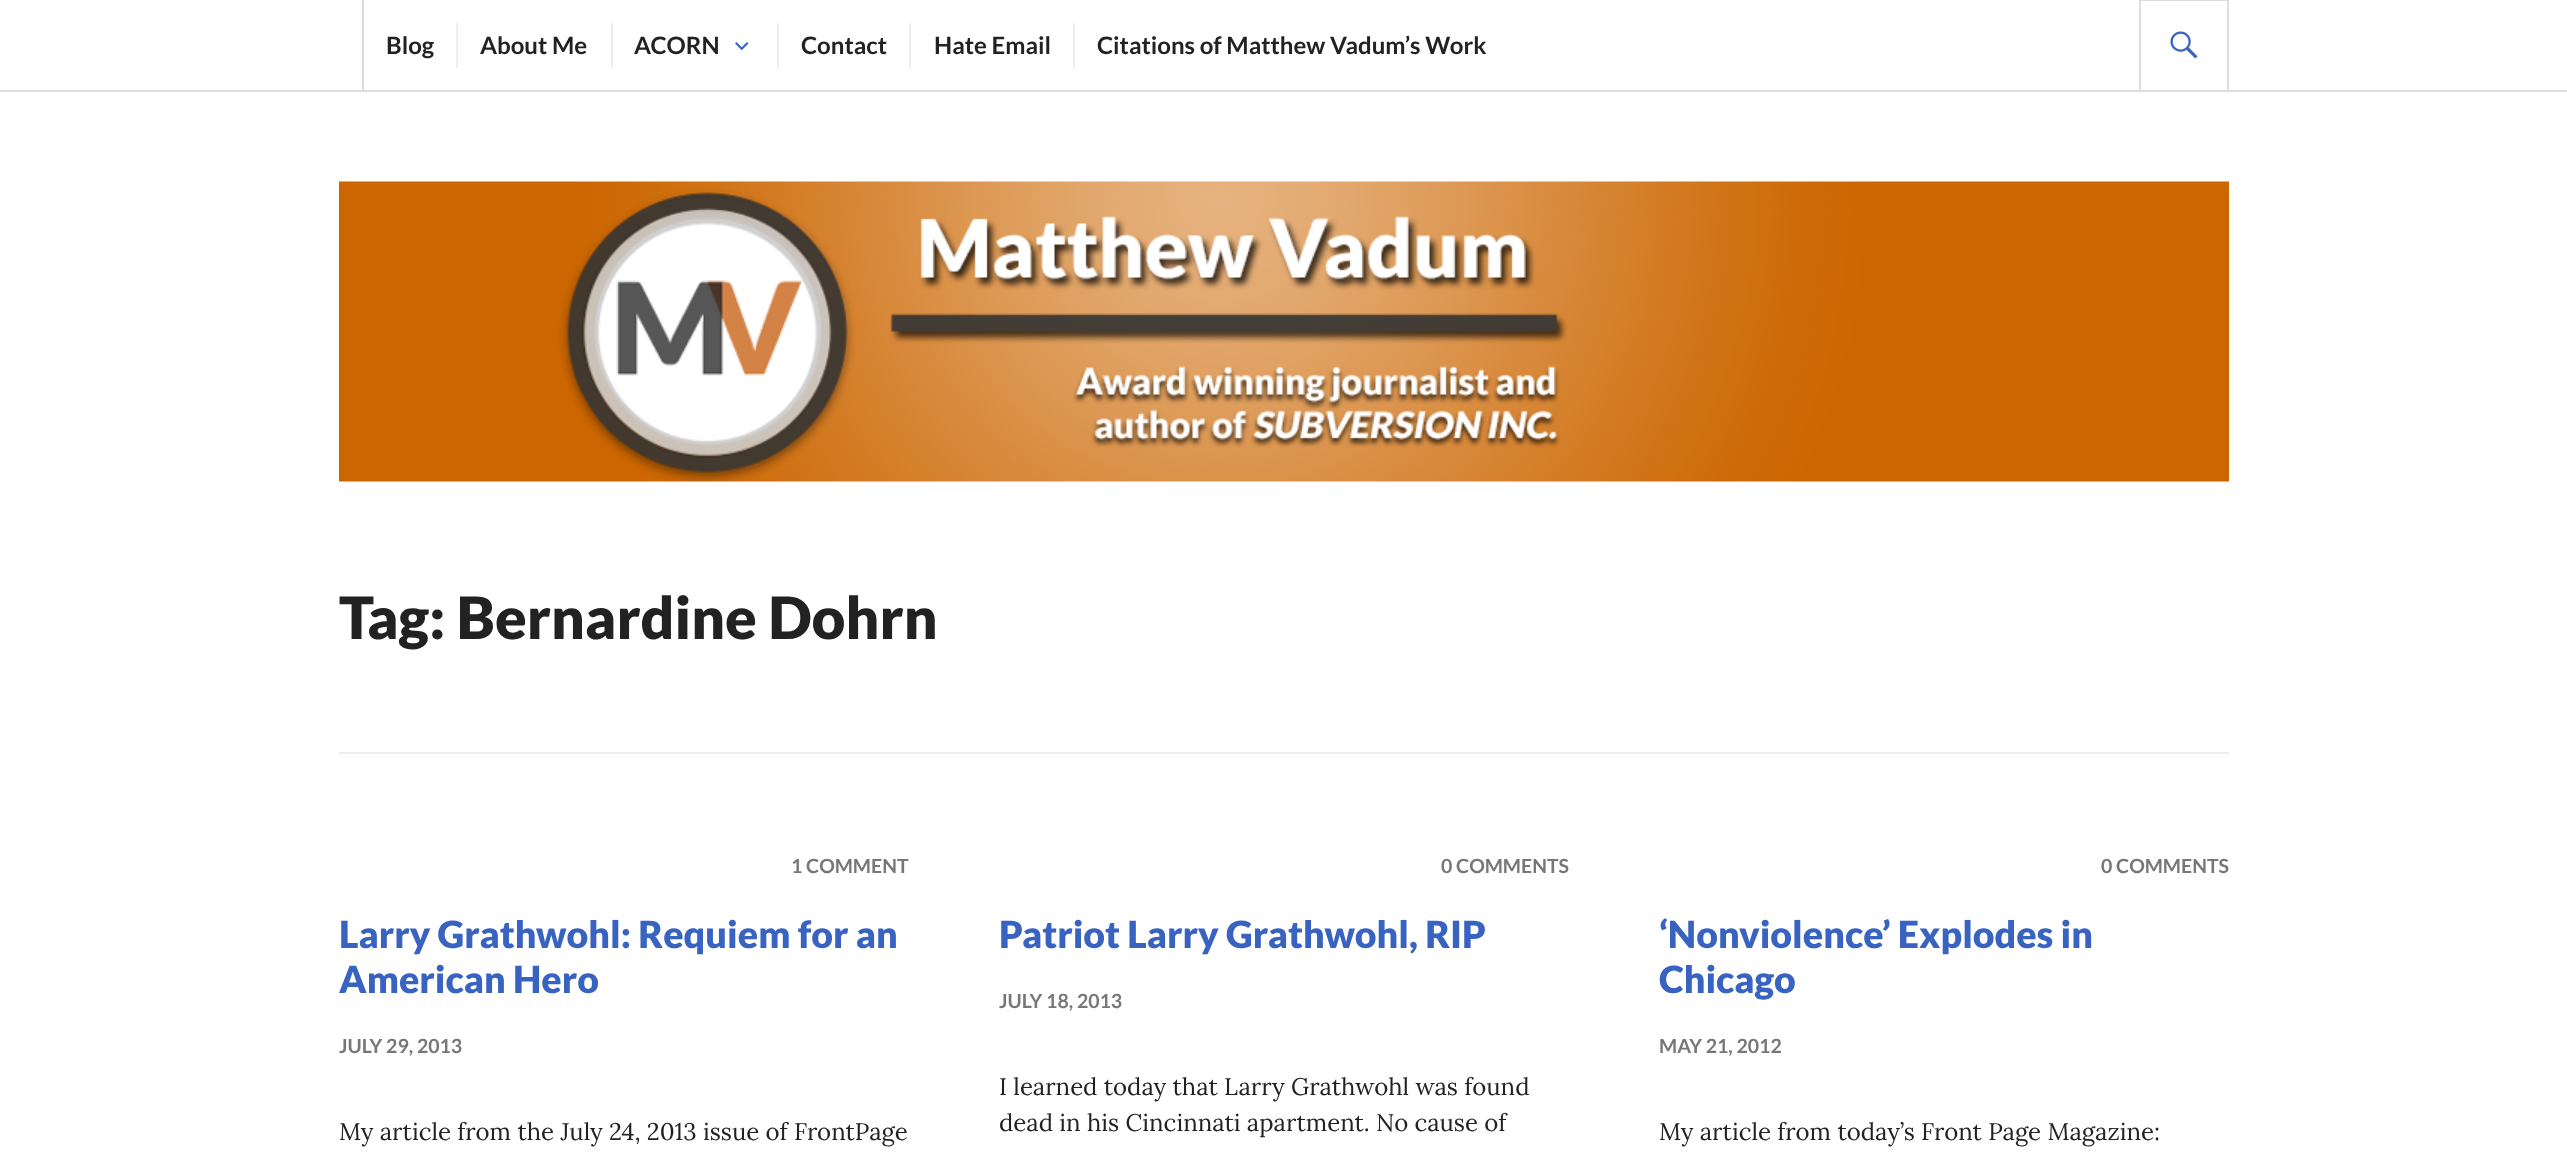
<?xml version="1.0" encoding="UTF-8"?>
<svg xmlns="http://www.w3.org/2000/svg" xmlns:xlink="http://www.w3.org/1999/xlink" width="2567" height="1152">
  <rect width="100%" height="100%" fill="#ffffff" />
  <rect y="90" width="2567" height="2" fill="#dddddd" />
  <rect x="362" width="2" height="90" fill="#dddddd" />
  <rect x="456" y="23" width="2" height="45" fill="#eeeeee" />
  <rect x="611" y="23" width="2" height="45" fill="#eeeeee" />
  <image x="735" y="42" width="14" height="9" xlink:href="image1.png" />
  <rect x="777" y="23" width="2" height="45" fill="#eeeeee" />
  <rect x="909" y="23" width="2" height="45" fill="#eeeeee" />
  <rect x="1073" y="23" width="2" height="45" fill="#eeeeee" />
  <rect x="2140" y="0" width="88" height="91" fill="none" stroke="#dddddd" stroke-width="2" />
  <image x="2170" y="31" width="28" height="28" xlink:href="image2.png" />
  <image x="339" y="181" width="1890" height="301" xlink:href="image3.png" />
  <rect x="339" y="752" width="1890" height="2" fill="#eeeeee" />
  <text x="386" y="54" style="font-family: Lato; font-size: 24px; font-weight: bold; fill: #222222">Blog</text>
  <text x="480" y="54" style="font-family: Lato; font-size: 24px; font-weight: bold; fill: #222222">About Me</text>
  <text x="634" y="54" style="font-family: Lato; font-size: 24px; font-weight: bold; fill: #222222">ACORN</text>
  <text x="801" y="54" style="font-family: Lato; font-size: 24px; font-weight: bold; fill: #222222">Contact</text>
  <text x="934" y="54" style="font-family: Lato; font-size: 24px; font-weight: bold; fill: #222222">Hate Email</text>
  <text x="1097" y="54" style="font-family: Lato; font-size: 24px; font-weight: bold; fill: #222222">Citations of Matthew Vadum’s Work</text>
  <text x="339" y="639" style="font-family: Lato; font-size: 58.5px; font-weight: 900; fill: #222222">Tag: Bernardine Dohrn</text>
  <text x="791" y="873" style="font-family: Lato; font-size: 19.5px; font-weight: bold; fill: #777777">1 COMMENT</text>
  <text x="339" y="948" style="font-family: Lato; font-size: 37.5px; font-weight: 900; fill: #3863c1">Larry Grathwohl: Requiem for an</text>
  <text x="339" y="993" style="font-family: Lato; font-size: 37.5px; font-weight: 900; fill: #3863c1">American Hero</text>
  <text x="339" y="1053" style="font-family: Lato; font-size: 19.5px; font-weight: bold; fill: #777777">JULY 29, 2013</text>
  <text x="339" y="1140" style="font-family: Lora; font-size: 24px; fill: #222222">My article from the July 24, 2013 issue of FrontPage</text>
  <text x="1441" y="873" style="font-family: Lato; font-size: 19.5px; font-weight: bold; fill: #777777">0 COMMENTS</text>
  <text x="999" y="948" style="font-family: Lato; font-size: 37.5px; font-weight: 900; fill: #3863c1">Patriot Larry Grathwohl, RIP</text>
  <text x="999" y="1008" style="font-family: Lato; font-size: 19.5px; font-weight: bold; fill: #777777">JULY 18, 2013</text>
  <text x="999" y="1095" style="font-family: Lora; font-size: 24px; fill: #222222">I learned today that Larry Grathwohl was found</text>
  <text x="999" y="1131" style="font-family: Lora; font-size: 24px; fill: #222222">dead in his Cincinnati apartment. No cause of</text>
  <text x="2101" y="873" style="font-family: Lato; font-size: 19.5px; font-weight: bold; fill: #777777">0 COMMENTS</text>
  <text x="1659" y="948" style="font-family: Lato; font-size: 37.5px; font-weight: 900; fill: #3863c1">‘Nonviolence’ Explodes in</text>
  <text x="1659" y="993" style="font-family: Lato; font-size: 37.5px; font-weight: 900; fill: #3863c1">Chicago</text>
  <text x="1659" y="1053" style="font-family: Lato; font-size: 19.5px; font-weight: bold; fill: #777777">MAY 21, 2012</text>
  <text x="1659" y="1140" style="font-family: Lora; font-size: 24px; fill: #222222">My article from today’s Front Page Magazine:</text>
</svg>
